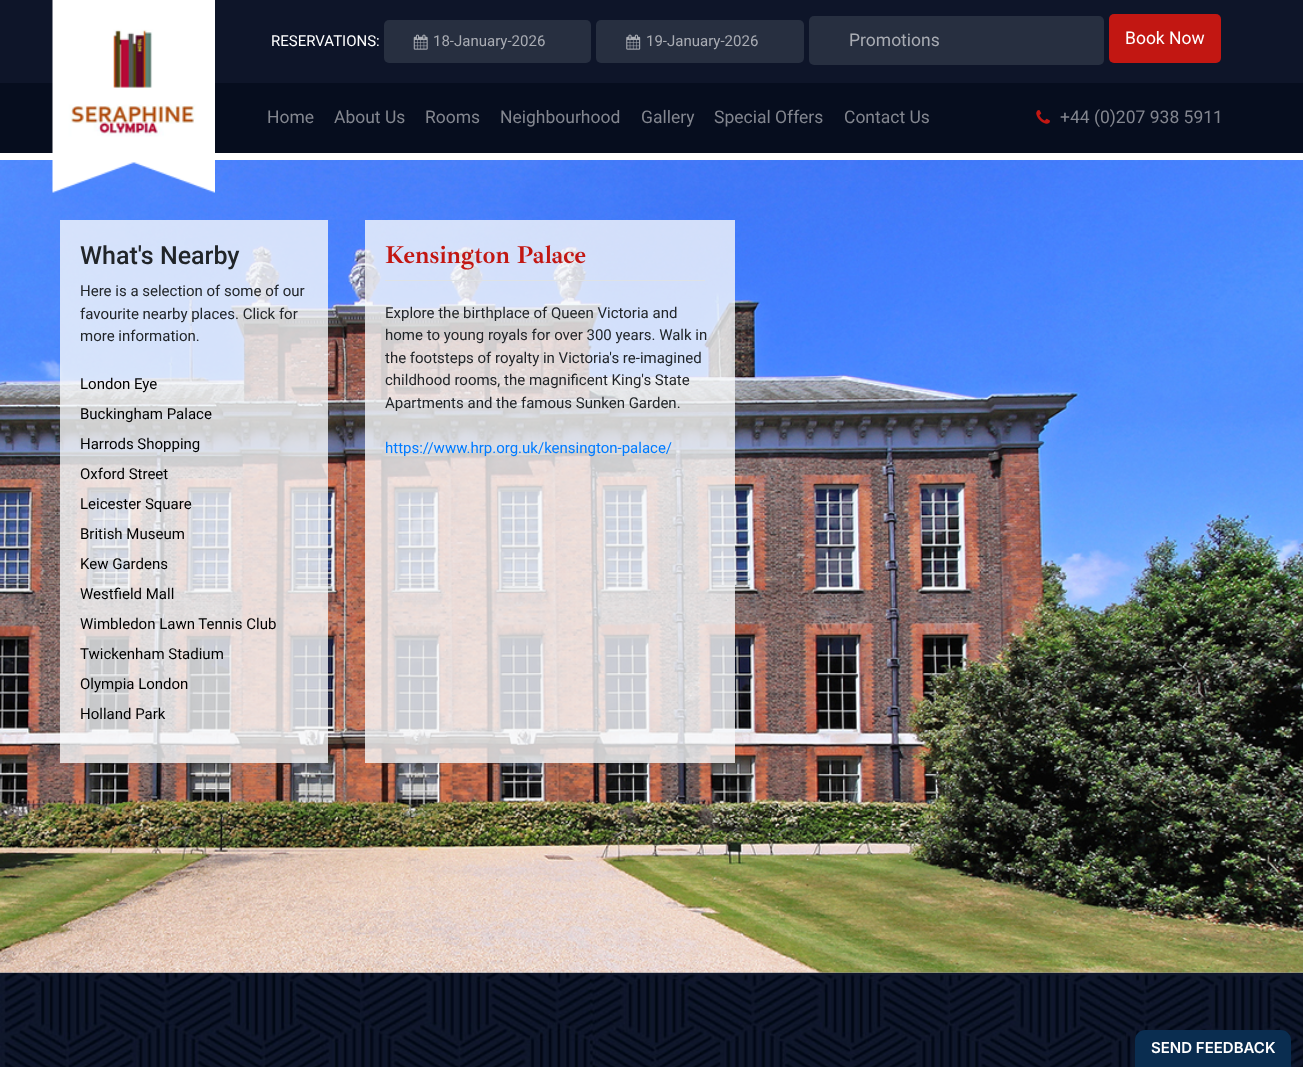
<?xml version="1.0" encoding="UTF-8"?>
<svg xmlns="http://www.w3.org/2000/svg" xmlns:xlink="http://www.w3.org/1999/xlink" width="1303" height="1067">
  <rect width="100%" height="100%" fill="#ffffff" />
  <rect width="1303" height="83" fill="#0e1529" />
  <rect x="384" y="20" width="207" height="43" rx="5" fill="#272f40" />
  <image x="413" y="34" width="15" height="16" xlink:href="image1.png" />
  <rect x="596" y="20" width="208" height="43" rx="5" fill="#272f40" />
  <image x="626" y="34" width="15" height="16" xlink:href="image2.png" />
  <rect x="809" y="16" width="295" height="49" rx="5" fill="#272f40" />
  <rect x="1109" y="14" width="112" height="49" rx="5" fill="#c21712" />
  <rect y="83" width="1303" height="70" fill="#060d1e" />
  <image x="0" y="972" width="1303" height="95" xlink:href="image6.png" />
  <image x="0" y="160" width="1303" height="813" xlink:href="image5.png" />
  <image x="52" y="0" width="163" height="193" xlink:href="image3.png" />
  <image x="1036" y="110" width="14" height="14" xlink:href="image4.png" />
  <rect x="60" y="220" width="268" height="543" fill="#f8f9fa" fill-opacity="0.8" />
  <rect x="365" y="220" width="370" height="543" fill="#f8f9fa" fill-opacity="0.8" />
  <rect x="385" y="280" width="320" height="1" fill="#dee2e6" />
  <rect x="1135" y="1043" width="156" height="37" rx="10" fill="#003980" fill-opacity="0.2" filter="blur(6px)" />
  <path d="M 1145 1030 h 136 c 5.5 0 10 4.5 10 10 v 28 h -156 v -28 c 0 -5.5 4.5 -10 10 -10 z" fill="#0a2d50" />
  <text x="271" y="46" style="font-family: Roboto; font-size: 15px; fill: #ffffff">RESERVATIONS:</text>
  <text x="433" y="46" style="font-family: Roboto; font-size: 15px; fill: #a9acb3">18-January-2026</text>
  <text x="646" y="46" style="font-family: Roboto; font-size: 15px; fill: #a9acb3">19-January-2026</text>
  <text x="849" y="46" style="font-family: Roboto; font-size: 17.5px; fill: #a9acb3">Promotions</text>
  <text x="1125" y="44" style="font-family: Roboto; font-size: 17.5px; fill: #ffffff">Book Now</text>
  <text x="267" y="123" style="font-family: Roboto; font-size: 17.5px; fill: #83868f">Home</text>
  <text x="334" y="123" style="font-family: Roboto; font-size: 17.5px; fill: #83868f">About Us</text>
  <text x="425" y="123" style="font-family: Roboto; font-size: 17.5px; fill: #83868f">Rooms</text>
  <text x="500" y="123" style="font-family: Roboto; font-size: 17.5px; fill: #83868f">Neighbourhood</text>
  <text x="641" y="123" style="font-family: Roboto; font-size: 17.5px; fill: #83868f">Gallery</text>
  <text x="714" y="123" style="font-family: Roboto; font-size: 17.5px; fill: #83868f">Special Offers</text>
  <text x="844" y="123" style="font-family: Roboto; font-size: 17.5px; fill: #83868f">Contact Us</text>
  <text x="1060" y="123" style="font-family: Roboto; font-size: 17.5px; fill: #83868f">+44 (0)207 938 5911</text>
  <text x="80" y="264" style="font-family: Roboto; font-size: 25px; font-weight: 500; fill: #212529">What's Nearby</text>
  <text x="80" y="296" style="font-family: Roboto; font-size: 15px; fill: #212529">Here is a selection of some of our</text>
  <text x="80" y="319" style="font-family: Roboto; font-size: 15px; fill: #212529">favourite nearby places. Click for</text>
  <text x="80" y="341" style="font-family: Roboto; font-size: 15px; fill: #212529">more information.</text>
  <text x="80" y="389" style="font-family: Roboto; font-size: 15px; fill: #000000">London Eye</text>
  <text x="80" y="419" style="font-family: Roboto; font-size: 15px; fill: #000000">Buckingham Palace</text>
  <text x="80" y="449" style="font-family: Roboto; font-size: 15px; fill: #000000">Harrods Shopping</text>
  <text x="80" y="479" style="font-family: Roboto; font-size: 15px; fill: #000000">Oxford Street</text>
  <text x="80" y="509" style="font-family: Roboto; font-size: 15px; fill: #000000">Leicester Square</text>
  <text x="80" y="539" style="font-family: Roboto; font-size: 15px; fill: #000000">British Museum</text>
  <text x="80" y="569" style="font-family: Roboto; font-size: 15px; fill: #000000">Kew Gardens</text>
  <text x="80" y="599" style="font-family: Roboto; font-size: 15px; fill: #000000">Westfield Mall</text>
  <text x="80" y="629" style="font-family: Roboto; font-size: 15px; fill: #000000">Wimbledon Lawn Tennis Club</text>
  <text x="80" y="659" style="font-family: Roboto; font-size: 15px; fill: #000000">Twickenham Stadium</text>
  <text x="80" y="689" style="font-family: Roboto; font-size: 15px; fill: #000000">Olympia London</text>
  <text x="80" y="719" style="font-family: Roboto; font-size: 15px; fill: #000000">Holland Park</text>
  <text x="385" y="263" style="font-family: Ibarra Real Nova; font-size: 25px; font-weight: bold; fill: #c21712">Kensington Palace</text>
  <text x="385" y="318" style="font-family: Roboto; font-size: 15px; fill: #212529">Explore the birthplace of Queen Victoria and</text>
  <text x="385" y="340" style="font-family: Roboto; font-size: 15px; fill: #212529">home to young royals for over 300 years. Walk in</text>
  <text x="385" y="363" style="font-family: Roboto; font-size: 15px; fill: #212529">the footsteps of royalty in Victoria's re-imagined</text>
  <text x="385" y="385" style="font-family: Roboto; font-size: 15px; fill: #212529">childhood rooms, the magnificent King's State</text>
  <text x="385" y="408" style="font-family: Roboto; font-size: 15px; fill: #212529">Apartments and the famous Sunken Garden.</text>
  <text x="385" y="453" style="font-family: Roboto; font-size: 15px; fill: #007bff">https://www.hrp.org.uk/kensington-palace/</text>
  <text x="1151" y="1053" style="font-family: Inter; font-size: 15px; font-weight: 600; fill: #ffffff">SEND FEEDBACK</text>
</svg>
